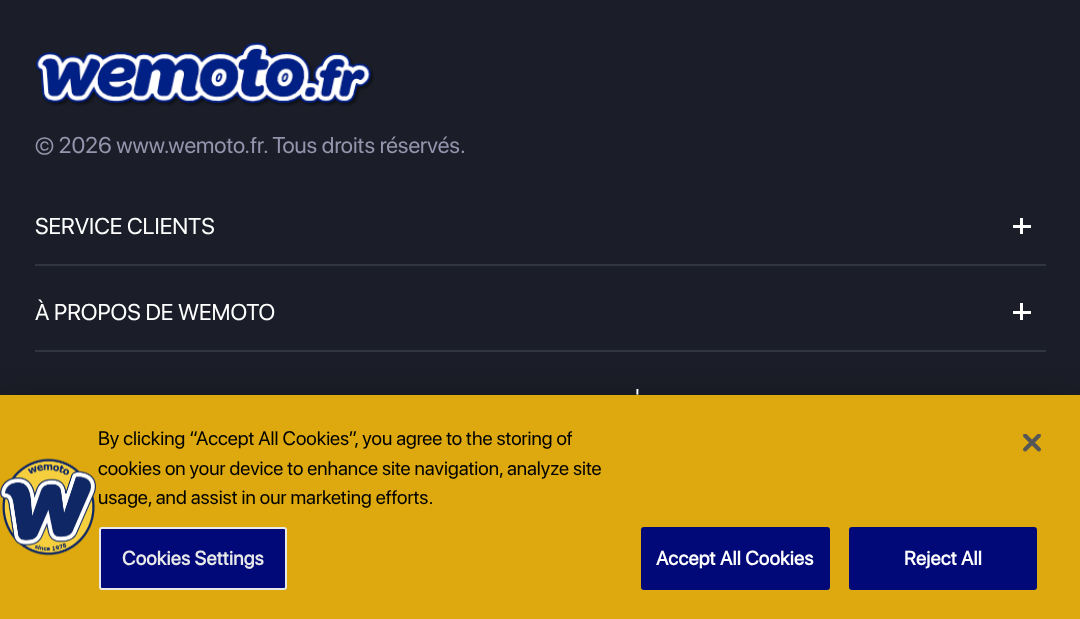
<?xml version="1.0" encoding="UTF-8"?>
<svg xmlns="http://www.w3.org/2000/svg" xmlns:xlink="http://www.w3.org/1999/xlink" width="1080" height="619">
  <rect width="100%" height="100%" fill="#1b1e28" />
  <image x="35" y="42" width="339" height="64" xlink:href="image1.png" />
  <rect x="35" y="264" width="1011" height="2" fill="#313441" />
  <rect x="1013" y="225" width="18" height="3" fill="#ffffff" />
  <rect x="1020" y="218" width="3" height="16" fill="#ffffff" />
  <rect x="35" y="350" width="1011" height="2" fill="#313441" />
  <rect x="1013" y="311" width="18" height="3" fill="#ffffff" />
  <rect x="1020" y="303" width="3" height="17" fill="#ffffff" />
  <rect y="395" width="1080" height="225" fill="#000000" fill-opacity="0.2" filter="blur(13.5px)" />
  <rect y="395" width="1080" height="224" fill="#dda90e" />
  <image x="0" y="458" width="96" height="98" xlink:href="image2.png" />
  <rect x="100" y="528" width="186" height="61" rx="2" fill="#000977" stroke="#e9e9e9" stroke-width="2" />
  <rect x="642" y="528" width="187" height="61" rx="2" fill="#000977" stroke="#000977" stroke-width="2" />
  <rect x="850" y="528" width="186" height="61" rx="2" fill="#000977" stroke="#000977" stroke-width="2" />
  <image x="1023" y="434" width="18" height="18" xlink:href="image3.png" />
  <text x="35" y="153" style="font-family: SF Pro Display; font-size: 22.75px; fill: #9494ad">© 2026 www.wemoto.fr. Tous droits réservés.</text>
  <text x="35" y="234" style="font-family: SF Pro Display; font-size: 22.75px; fill: #ffffff">SERVICE CLIENTS</text>
  <text x="35" y="320" style="font-family: SF Pro Display; font-size: 22.75px; fill: #ffffff">À PROPOS DE WEMOTO</text>
  <text x="635" y="405" style="font-family: SF Pro Display; font-size: 22.75px; fill: #ffffff">'</text>
  <text x="98" y="445" style="font-family: SF Pro Display; font-size: 19.5px; fill: #000000">By clicking “Accept All Cookies”, you agree to the storing of</text>
  <text x="98" y="475" style="font-family: SF Pro Display; font-size: 19.5px; fill: #000000">cookies on your device to enhance site navigation, analyze site</text>
  <text x="98" y="504" style="font-family: SF Pro Display; font-size: 19.5px; fill: #000000">usage, and assist in our marketing efforts.</text>
  <text x="122" y="565" style="font-family: SF Pro Display; font-size: 19.5px; font-weight: bold; letter-spacing: 0.25px; fill: #e9e9e9">Cookies Settings</text>
  <text x="656" y="565" style="font-family: SF Pro Display; font-size: 19.5px; font-weight: bold; letter-spacing: 0.25px; fill: #ffffff">Accept All Cookies</text>
  <text x="904" y="565" style="font-family: SF Pro Display; font-size: 19.5px; font-weight: bold; letter-spacing: 0.25px; fill: #ffffff">Reject All</text>
</svg>
